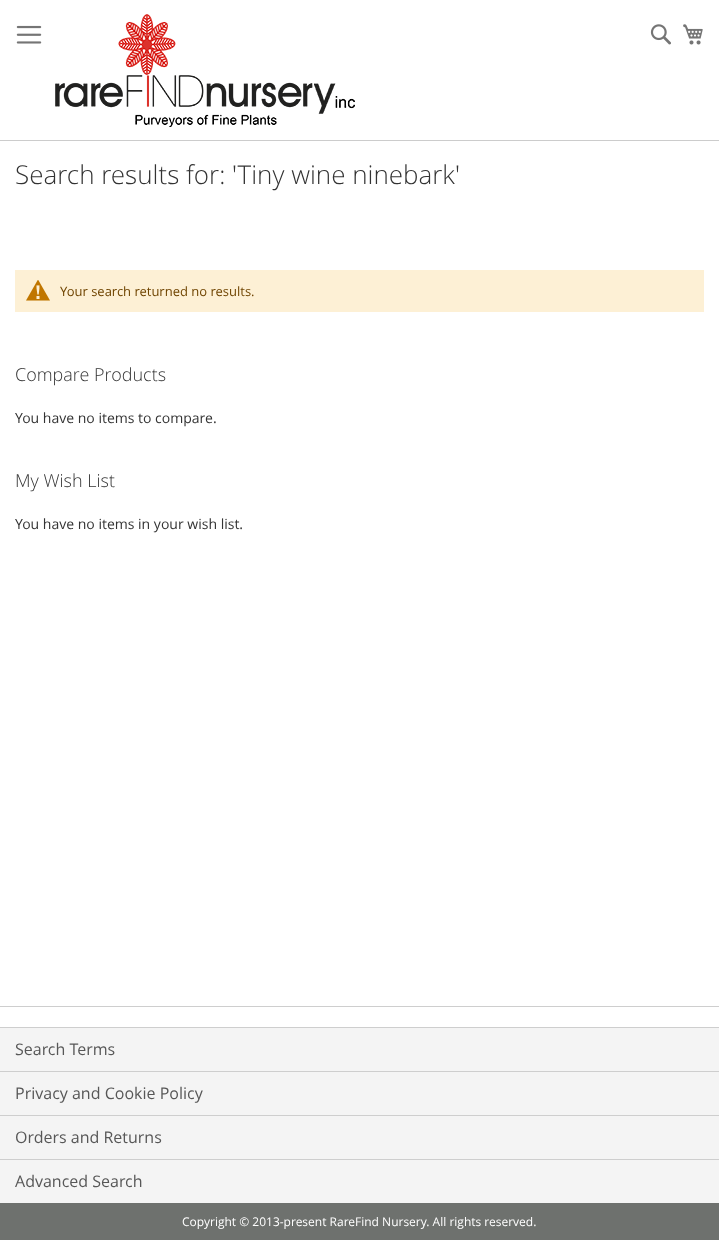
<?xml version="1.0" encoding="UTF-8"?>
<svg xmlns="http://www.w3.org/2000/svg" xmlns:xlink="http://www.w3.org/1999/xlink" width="719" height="1240">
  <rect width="100%" height="100%" fill="#ffffff" />
  <rect y="140" width="719" height="1" fill="#cccccc" />
  <image x="16" y="25" width="26" height="19" xlink:href="image1.png" />
  <image x="55" y="14" width="300" height="113" xlink:href="image2.png" />
  <image x="650" y="24" width="21" height="21" xlink:href="image3.png" />
  <image x="683" y="24" width="20" height="21" xlink:href="image4.png" />
  <rect x="15" y="270" width="689" height="42" fill="#fdf0d5" />
  <image x="26" y="280" width="24" height="21" xlink:href="image5.png" />
  <rect y="1006" width="719" height="1" fill="#cecece" />
  <rect y="1028" width="719" height="43" fill="#f4f4f4" />
  <rect y="1027" width="719" height="1" fill="#cecece" />
  <rect y="1072" width="719" height="43" fill="#f4f4f4" />
  <rect y="1071" width="719" height="1" fill="#cecece" />
  <rect y="1116" width="719" height="43" fill="#f4f4f4" />
  <rect y="1115" width="719" height="1" fill="#cecece" />
  <rect y="1160" width="719" height="43" fill="#f4f4f4" />
  <rect y="1159" width="719" height="1" fill="#cecece" />
  <rect y="1203" width="719" height="37" fill="#6e716e" />
  <text x="15" y="184" style="font-family: Open Sans; font-size: 26px; font-weight: 300; fill: #333333">Search results for: 'Tiny wine ninebark'</text>
  <text x="60" y="296" style="font-family: Open Sans; font-size: 13px; fill: #6f4400">Your search returned no results.</text>
  <text x="15" y="381" style="font-family: Open Sans; font-size: 18px; font-weight: 300; fill: #333333">Compare Products</text>
  <text x="15" y="423" style="font-family: Open Sans; font-size: 14px; fill: #333333">You have no items to compare.</text>
  <text x="15" y="487" style="font-family: Open Sans; font-size: 18px; font-weight: 300; fill: #333333">My Wish List</text>
  <text x="15" y="529" style="font-family: Open Sans; font-size: 14px; fill: #333333">You have no items in your wish list.</text>
  <text x="15" y="1055" style="font-family: Open Sans; font-size: 16px; fill: #575757">Search Terms</text>
  <text x="15" y="1099" style="font-family: Open Sans; font-size: 16px; fill: #575757">Privacy and Cookie Policy</text>
  <text x="15" y="1143" style="font-family: Open Sans; font-size: 16px; fill: #575757">Orders and Returns</text>
  <text x="15" y="1187" style="font-family: Open Sans; font-size: 16px; fill: #575757">Advanced Search</text>
  <text x="182" y="1226" style="font-family: Open Sans; font-size: 12px; fill: #ffffff">Copyright © 2013-present RareFind Nursery. All rights reserved.</text>
</svg>
